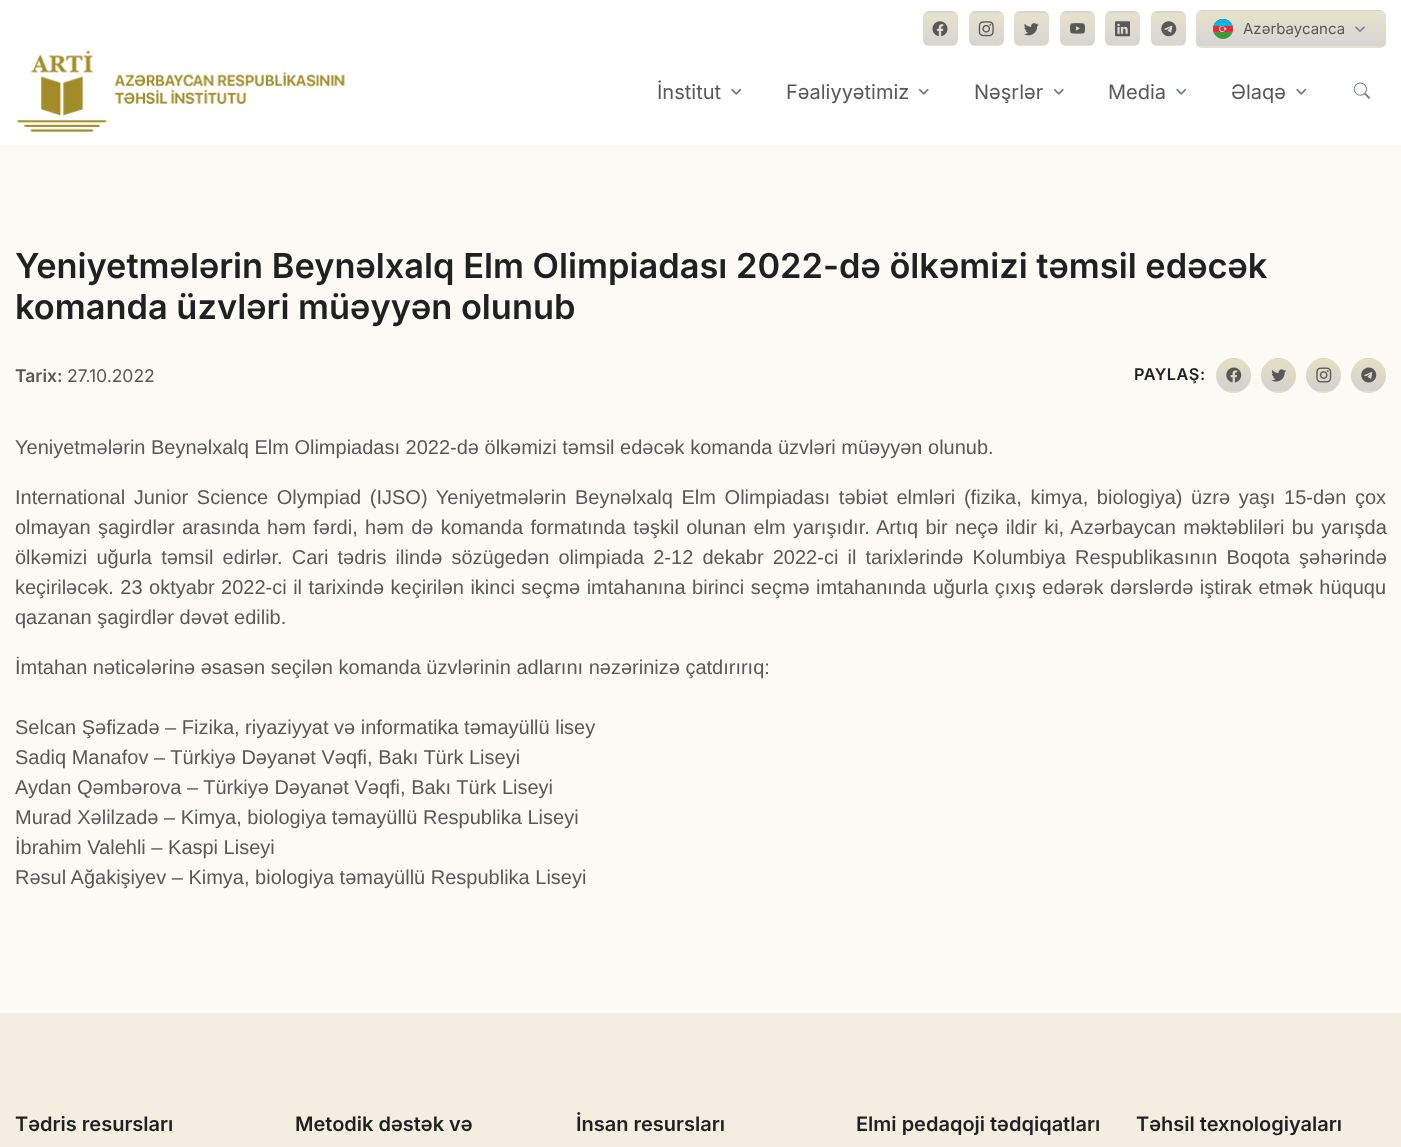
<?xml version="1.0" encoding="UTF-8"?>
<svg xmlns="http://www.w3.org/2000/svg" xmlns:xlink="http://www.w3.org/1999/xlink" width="1401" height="1147">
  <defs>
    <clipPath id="clip1"><rect x="923" y="11" width="35" height="35" rx="6" /></clipPath>
    <linearGradient id="g1" gradientUnits="userSpaceOnUse" x1="940" y1="-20" x2="940" y2="13"><stop offset="0" stop-color="#e8e2c9" /><stop offset="1" stop-color="#d5d5d5" /></linearGradient>
    <linearGradient id="g2" gradientUnits="userSpaceOnUse" x1="940" y1="12" x2="940" y2="45"><stop offset="0" stop-color="#e8e2c9" /><stop offset="1" stop-color="#d5d5d5" /></linearGradient>
    <linearGradient id="g3" gradientUnits="userSpaceOnUse" x1="940" y1="45" x2="940" y2="78"><stop offset="0" stop-color="#e8e2c9" /><stop offset="1" stop-color="#d5d5d5" /></linearGradient>
    <clipPath id="clip2"><rect x="969" y="11" width="35" height="35" rx="6" /></clipPath>
    <linearGradient id="g4" gradientUnits="userSpaceOnUse" x1="986" y1="-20" x2="986" y2="13"><stop offset="0" stop-color="#e8e2c9" /><stop offset="1" stop-color="#d5d5d5" /></linearGradient>
    <linearGradient id="g5" gradientUnits="userSpaceOnUse" x1="986" y1="12" x2="986" y2="45"><stop offset="0" stop-color="#e8e2c9" /><stop offset="1" stop-color="#d5d5d5" /></linearGradient>
    <linearGradient id="g6" gradientUnits="userSpaceOnUse" x1="986" y1="45" x2="986" y2="78"><stop offset="0" stop-color="#e8e2c9" /><stop offset="1" stop-color="#d5d5d5" /></linearGradient>
    <clipPath id="clip3"><rect x="1014" y="11" width="35" height="35" rx="6" /></clipPath>
    <linearGradient id="g7" gradientUnits="userSpaceOnUse" x1="1031" y1="-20" x2="1031" y2="13"><stop offset="0" stop-color="#e8e2c9" /><stop offset="1" stop-color="#d5d5d5" /></linearGradient>
    <linearGradient id="g8" gradientUnits="userSpaceOnUse" x1="1031" y1="12" x2="1031" y2="45"><stop offset="0" stop-color="#e8e2c9" /><stop offset="1" stop-color="#d5d5d5" /></linearGradient>
    <linearGradient id="g9" gradientUnits="userSpaceOnUse" x1="1031" y1="45" x2="1031" y2="78"><stop offset="0" stop-color="#e8e2c9" /><stop offset="1" stop-color="#d5d5d5" /></linearGradient>
    <clipPath id="clip4"><rect x="1060" y="11" width="35" height="35" rx="6" /></clipPath>
    <linearGradient id="g10" gradientUnits="userSpaceOnUse" x1="1078" y1="-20" x2="1078" y2="13"><stop offset="0" stop-color="#e8e2c9" /><stop offset="1" stop-color="#d5d5d5" /></linearGradient>
    <linearGradient id="g11" gradientUnits="userSpaceOnUse" x1="1078" y1="12" x2="1078" y2="45"><stop offset="0" stop-color="#e8e2c9" /><stop offset="1" stop-color="#d5d5d5" /></linearGradient>
    <linearGradient id="g12" gradientUnits="userSpaceOnUse" x1="1078" y1="45" x2="1078" y2="78"><stop offset="0" stop-color="#e8e2c9" /><stop offset="1" stop-color="#d5d5d5" /></linearGradient>
    <clipPath id="clip5"><rect x="1105" y="11" width="35" height="35" rx="6" /></clipPath>
    <linearGradient id="g13" gradientUnits="userSpaceOnUse" x1="1123" y1="-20" x2="1123" y2="13"><stop offset="0" stop-color="#e8e2c9" /><stop offset="1" stop-color="#d5d5d5" /></linearGradient>
    <linearGradient id="g14" gradientUnits="userSpaceOnUse" x1="1123" y1="12" x2="1123" y2="45"><stop offset="0" stop-color="#e8e2c9" /><stop offset="1" stop-color="#d5d5d5" /></linearGradient>
    <linearGradient id="g15" gradientUnits="userSpaceOnUse" x1="1123" y1="45" x2="1123" y2="78"><stop offset="0" stop-color="#e8e2c9" /><stop offset="1" stop-color="#d5d5d5" /></linearGradient>
    <clipPath id="clip6"><rect x="1151" y="11" width="35" height="35" rx="6" /></clipPath>
    <linearGradient id="g16" gradientUnits="userSpaceOnUse" x1="1169" y1="-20" x2="1169" y2="13"><stop offset="0" stop-color="#e8e2c9" /><stop offset="1" stop-color="#d5d5d5" /></linearGradient>
    <linearGradient id="g17" gradientUnits="userSpaceOnUse" x1="1169" y1="12" x2="1169" y2="45"><stop offset="0" stop-color="#e8e2c9" /><stop offset="1" stop-color="#d5d5d5" /></linearGradient>
    <linearGradient id="g18" gradientUnits="userSpaceOnUse" x1="1169" y1="45" x2="1169" y2="78"><stop offset="0" stop-color="#e8e2c9" /><stop offset="1" stop-color="#d5d5d5" /></linearGradient>
    <clipPath id="clip7"><rect x="1196" y="10" width="190" height="38" rx="6" /></clipPath>
    <linearGradient id="g19" gradientUnits="userSpaceOnUse" x1="1291" y1="-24" x2="1291" y2="11"><stop offset="0" stop-color="#e8e2c9" /><stop offset="1" stop-color="#d5d5d5" /></linearGradient>
    <linearGradient id="g20" gradientUnits="userSpaceOnUse" x1="1291" y1="11" x2="1291" y2="46"><stop offset="0" stop-color="#e8e2c9" /><stop offset="1" stop-color="#d5d5d5" /></linearGradient>
    <linearGradient id="g21" gradientUnits="userSpaceOnUse" x1="1291" y1="46" x2="1291" y2="81"><stop offset="0" stop-color="#e8e2c9" /><stop offset="1" stop-color="#d5d5d5" /></linearGradient>
    <clipPath id="clip8"><rect x="1216" y="358" width="35" height="35" rx="17.5" /></clipPath>
    <linearGradient id="g22" gradientUnits="userSpaceOnUse" x1="1234" y1="326" x2="1234" y2="359"><stop offset="0" stop-color="#e5dfc2" /><stop offset="1" stop-color="#d2d2ce" /></linearGradient>
    <linearGradient id="g23" gradientUnits="userSpaceOnUse" x1="1234" y1="359" x2="1234" y2="391"><stop offset="0" stop-color="#e5dfc2" /><stop offset="1" stop-color="#d2d2ce" /></linearGradient>
    <linearGradient id="g24" gradientUnits="userSpaceOnUse" x1="1234" y1="391" x2="1234" y2="424"><stop offset="0" stop-color="#e5dfc2" /><stop offset="1" stop-color="#d2d2ce" /></linearGradient>
    <clipPath id="clip9"><rect x="1261" y="358" width="35" height="35" rx="17.5" /></clipPath>
    <linearGradient id="g25" gradientUnits="userSpaceOnUse" x1="1279" y1="326" x2="1279" y2="359"><stop offset="0" stop-color="#e5dfc2" /><stop offset="1" stop-color="#d2d2ce" /></linearGradient>
    <linearGradient id="g26" gradientUnits="userSpaceOnUse" x1="1279" y1="359" x2="1279" y2="391"><stop offset="0" stop-color="#e5dfc2" /><stop offset="1" stop-color="#d2d2ce" /></linearGradient>
    <linearGradient id="g27" gradientUnits="userSpaceOnUse" x1="1279" y1="391" x2="1279" y2="424"><stop offset="0" stop-color="#e5dfc2" /><stop offset="1" stop-color="#d2d2ce" /></linearGradient>
    <clipPath id="clip10"><rect x="1306" y="358" width="35" height="35" rx="17.5" /></clipPath>
    <linearGradient id="g28" gradientUnits="userSpaceOnUse" x1="1324" y1="326" x2="1324" y2="359"><stop offset="0" stop-color="#e5dfc2" /><stop offset="1" stop-color="#d2d2ce" /></linearGradient>
    <linearGradient id="g29" gradientUnits="userSpaceOnUse" x1="1324" y1="359" x2="1324" y2="391"><stop offset="0" stop-color="#e5dfc2" /><stop offset="1" stop-color="#d2d2ce" /></linearGradient>
    <linearGradient id="g30" gradientUnits="userSpaceOnUse" x1="1324" y1="391" x2="1324" y2="424"><stop offset="0" stop-color="#e5dfc2" /><stop offset="1" stop-color="#d2d2ce" /></linearGradient>
    <clipPath id="clip11"><rect x="1351" y="358" width="35" height="35" rx="17.5" /></clipPath>
    <linearGradient id="g31" gradientUnits="userSpaceOnUse" x1="1369" y1="326" x2="1369" y2="359"><stop offset="0" stop-color="#e5dfc2" /><stop offset="1" stop-color="#d2d2ce" /></linearGradient>
    <linearGradient id="g32" gradientUnits="userSpaceOnUse" x1="1369" y1="359" x2="1369" y2="391"><stop offset="0" stop-color="#e5dfc2" /><stop offset="1" stop-color="#d2d2ce" /></linearGradient>
    <linearGradient id="g33" gradientUnits="userSpaceOnUse" x1="1369" y1="391" x2="1369" y2="424"><stop offset="0" stop-color="#e5dfc2" /><stop offset="1" stop-color="#d2d2ce" /></linearGradient>
  </defs>
  <rect width="100%" height="100%" fill="#fbfaf5" />
  <rect width="1401" height="145" fill="#ffffff" />
  <g clip-path="url(#clip1)">
    <rect x="923" y="11" width="35" height="2" fill="url(#g1)" />
    <rect x="923" y="13" width="35" height="32" fill="url(#g2)" />
    <rect x="923" y="45" width="35" height="1" fill="url(#g3)" />
  </g>
  <image x="932" y="21" width="16" height="16" xlink:href="image1.png" />
  <g clip-path="url(#clip2)">
    <rect x="969" y="11" width="35" height="2" fill="url(#g4)" />
    <rect x="969" y="13" width="35" height="32" fill="url(#g5)" />
    <rect x="969" y="45" width="35" height="1" fill="url(#g6)" />
  </g>
  <image x="978" y="21" width="16" height="16" xlink:href="image2.png" />
  <g clip-path="url(#clip3)">
    <rect x="1014" y="11" width="35" height="2" fill="url(#g7)" />
    <rect x="1014" y="13" width="35" height="32" fill="url(#g8)" />
    <rect x="1014" y="45" width="35" height="1" fill="url(#g9)" />
  </g>
  <image x="1024" y="23" width="15" height="13" xlink:href="image3.png" />
  <g clip-path="url(#clip4)">
    <rect x="1060" y="11" width="35" height="2" fill="url(#g10)" />
    <rect x="1060" y="13" width="35" height="32" fill="url(#g11)" />
    <rect x="1060" y="45" width="35" height="1" fill="url(#g12)" />
  </g>
  <image x="1070" y="23" width="15" height="11" xlink:href="image4.png" />
  <g clip-path="url(#clip5)">
    <rect x="1105" y="11" width="35" height="2" fill="url(#g13)" />
    <rect x="1105" y="13" width="35" height="32" fill="url(#g14)" />
    <rect x="1105" y="45" width="35" height="1" fill="url(#g15)" />
  </g>
  <image x="1115" y="21" width="15" height="16" xlink:href="image5.png" />
  <g clip-path="url(#clip6)">
    <rect x="1151" y="11" width="35" height="2" fill="url(#g16)" />
    <rect x="1151" y="13" width="35" height="32" fill="url(#g17)" />
    <rect x="1151" y="45" width="35" height="1" fill="url(#g18)" />
  </g>
  <image x="1161" y="21" width="16" height="16" xlink:href="image6.png" />
  <g clip-path="url(#clip7)">
    <rect x="1196" y="10" width="190" height="1" fill="url(#g19)" />
    <rect x="1196" y="11" width="190" height="35" fill="url(#g20)" />
    <rect x="1196" y="46" width="190" height="2" fill="url(#g21)" />
  </g>
  <image x="1213" y="19" width="20" height="20" xlink:href="image7.png" />
  <image x="1355" y="26" width="10" height="6" xlink:href="image8.png" />
  <image x="17" y="50" width="328" height="82" xlink:href="image9.png" />
  <image x="731" y="88" width="11" height="7" xlink:href="image10.png" />
  <image x="918" y="88" width="11" height="7" xlink:href="image11.png" />
  <image x="1053" y="88" width="11" height="7" xlink:href="image11.png" />
  <image x="1176" y="88" width="11" height="7" xlink:href="image10.png" />
  <image x="1296" y="88" width="11" height="7" xlink:href="image10.png" />
  <image x="1353" y="82" width="17" height="17" xlink:href="image12.png" />
  <g clip-path="url(#clip8)">
    <rect x="1228" y="358" width="11" height="1" fill="url(#g22)" />
    <rect x="1216" y="359" width="35" height="32" fill="url(#g23)" />
    <rect x="1225" y="391" width="17" height="2" fill="url(#g24)" />
  </g>
  <image x="1226" y="367" width="16" height="16" xlink:href="image13.png" />
  <g clip-path="url(#clip9)">
    <rect x="1273" y="358" width="11" height="1" fill="url(#g25)" />
    <rect x="1261" y="359" width="35" height="32" fill="url(#g26)" />
    <rect x="1270" y="391" width="17" height="2" fill="url(#g27)" />
  </g>
  <image x="1271" y="369" width="15" height="13" xlink:href="image14.png" />
  <g clip-path="url(#clip10)">
    <rect x="1318" y="358" width="11" height="1" fill="url(#g28)" />
    <rect x="1306" y="359" width="35" height="32" fill="url(#g29)" />
    <rect x="1315" y="391" width="17" height="2" fill="url(#g30)" />
  </g>
  <image x="1316" y="367" width="16" height="16" xlink:href="image15.png" />
  <g clip-path="url(#clip11)">
    <rect x="1363" y="358" width="11" height="1" fill="url(#g31)" />
    <rect x="1351" y="359" width="35" height="32" fill="url(#g32)" />
    <rect x="1360" y="391" width="17" height="2" fill="url(#g33)" />
  </g>
  <image x="1361" y="367" width="16" height="16" xlink:href="image16.png" />
  <rect y="1013" width="1401" height="134" fill="#f3eee0" />
  <text x="1243" y="34" style="font-family: Inter; font-size: 15px; fill: #585857">Azərbaycanca</text>
  <text x="657" y="99" style="font-family: Inter; font-size: 20px; fill: #585857">İnstitut</text>
  <text x="786" y="99" style="font-family: Inter; font-size: 20px; fill: #585857">Fəaliyyətimiz</text>
  <text x="974" y="99" style="font-family: Inter; font-size: 20px; fill: #585857">Nəşrlər</text>
  <text x="1108" y="99" style="font-family: Inter; font-size: 20px; fill: #585857">Media</text>
  <text x="1231" y="99" style="font-family: Inter; font-size: 20px; fill: #585857">Əlaqə</text>
  <text x="15" y="278" style="font-family: Inter; font-size: 34.4px; font-weight: 600; fill: #1e2022">Yeniyetmələrin Beynəlxalq Elm Olimpiadası 2022-də ölkəmizi təmsil edəcək</text>
  <text x="15" y="319" style="font-family: Inter; font-size: 34.4px; font-weight: 600; fill: #1e2022">komanda üzvləri müəyyən olunub</text>
  <text x="15" y="382" style="font-family: Inter; font-size: 17.5px; font-weight: 600; fill: #585857">Tarix:</text>
  <text x="67" y="382" style="font-family: Inter; font-size: 17.5px; fill: #585857">27.10.2022</text>
  <text x="1134" y="380" style="font-family: Inter; font-size: 16.25px; font-weight: 600; letter-spacing: 0.5px; fill: #1e2022">PAYLAŞ:</text>
  <text x="15" y="454" style="font-family: Liberation Sans; font-size: 20px; fill: #585857">Yeniyetmələrin Beynəlxalq Elm Olimpiadası 2022-də ölkəmizi təmsil edəcək komanda üzvləri müəyyən olunub.</text>
  <text x="15" y="504" word-spacing="3.1" style="font-family: Liberation Sans; font-size: 20px; fill: #585857">International Junior Science Olympiad (IJSO) Yeniyetmələrin Beynəlxalq Elm Olimpiadası təbiət elmləri (fizika, kimya, biologiya) üzrə yaşı 15-dən çox</text>
  <text x="15" y="534" word-spacing="1.75" style="font-family: Liberation Sans; font-size: 20px; fill: #585857">olmayan şagirdlər arasında həm fərdi, həm də komanda formatında təşkil olunan elm yarışıdır. Artıq bir neçə ildir ki, Azərbaycan məktəbliləri bu yarışda</text>
  <text x="15" y="564" word-spacing="3.6" style="font-family: Liberation Sans; font-size: 20px; fill: #585857">ölkəmizi uğurla təmsil edirlər. Cari tədris ilində sözügedən olimpiada 2-12 dekabr 2022-ci il tarixlərində Kolumbiya Respublikasının Boqota şəhərində</text>
  <text x="15" y="594" word-spacing="0.9" style="font-family: Liberation Sans; font-size: 20px; fill: #585857">keçiriləcək. 23 oktyabr 2022-ci il tarixində keçirilən ikinci seçmə imtahanına birinci seçmə imtahanında uğurla çıxış edərək dərslərdə iştirak etmək hüququ</text>
  <text x="15" y="624" style="font-family: Liberation Sans; font-size: 20px; fill: #585857">qazanan şagirdlər dəvət edilib.</text>
  <text x="15" y="674" style="font-family: Liberation Sans; font-size: 20px; fill: #585857">İmtahan nəticələrinə əsasən seçilən komanda üzvlərinin adlarını nəzərinizə çatdırırıq:</text>
  <text x="15" y="734" style="font-family: Liberation Sans; font-size: 20px; fill: #585857">Selcan Şəfizadə – Fizika, riyaziyyat və informatika təmayüllü lisey</text>
  <text x="15" y="764" style="font-family: Liberation Sans; font-size: 20px; fill: #585857">Sadiq Manafov – Türkiyə Dəyanət Vəqfi, Bakı Türk Liseyi</text>
  <text x="15" y="794" style="font-family: Liberation Sans; font-size: 20px; fill: #585857">Aydan Qəmbərova – Türkiyə Dəyanət Vəqfi, Bakı Türk Liseyi</text>
  <text x="15" y="824" style="font-family: Liberation Sans; font-size: 20px; fill: #585857">Murad Xəlilzadə – Kimya, biologiya təmayüllü Respublika Liseyi</text>
  <text x="15" y="854" style="font-family: Liberation Sans; font-size: 20px; fill: #585857">İbrahim Valehli – Kaspi Liseyi</text>
  <text x="15" y="884" style="font-family: Liberation Sans; font-size: 20px; fill: #585857">Rəsul Ağakişiyev – Kimya, biologiya təmayüllü Respublika Liseyi</text>
  <text x="15" y="1131" style="font-family: Inter; font-size: 20px; font-weight: 600; fill: #1e2022">Tədris resursları</text>
  <text x="295" y="1131" style="font-family: Inter; font-size: 20px; font-weight: 600; fill: #1e2022">Metodik dəstək və</text>
  <text x="576" y="1131" style="font-family: Inter; font-size: 20px; font-weight: 600; fill: #1e2022">İnsan resursları</text>
  <text x="856" y="1131" style="font-family: Inter; font-size: 20px; font-weight: 600; fill: #1e2022">Elmi pedaqoji tədqiqatları</text>
  <text x="1136" y="1131" style="font-family: Inter; font-size: 20px; font-weight: 600; fill: #1e2022">Təhsil texnologiyaları</text>
</svg>
